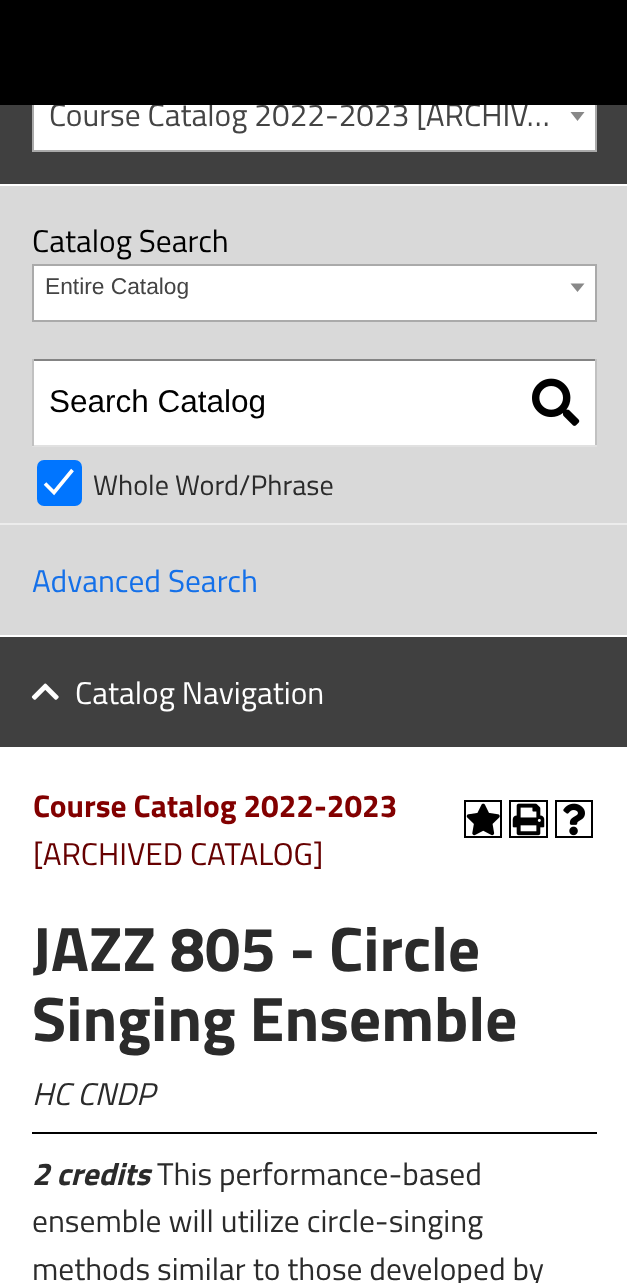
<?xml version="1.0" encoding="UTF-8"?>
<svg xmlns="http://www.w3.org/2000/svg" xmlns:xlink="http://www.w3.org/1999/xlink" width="627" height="1283">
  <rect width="100%" height="100%" fill="#ffffff" />
  <rect y="105" width="627" height="79" fill="#404040" />
  <rect x="34" y="105" width="561" height="45" fill="#ffffff" />
  <rect x="33" y="75" width="563" height="76" fill="none" stroke="#aaaaaa" stroke-width="2" />
  <path d="M 570.5 112 h 14 l -7 9 z" fill="#888888" />
  <rect y="186" width="627" height="449" fill="#d9d9d9" />
  <rect x="33" y="265" width="563" height="56" fill="#ffffff" stroke="#aaaaaa" stroke-width="2" />
  <path d="M 570.5 283.5 h 14 l -7 8.5 z" fill="#888888" />
  <rect x="34" y="361" width="561" height="84" fill="#ffffff" />
  <rect x="32" y="359" width="565" height="2" fill="#848484" />
  <rect x="595" y="359" width="2" height="87" fill="#c1c1c1" />
  <rect x="32" y="445" width="565" height="2" fill="#e1e1e1" />
  <rect x="32" y="359" width="2" height="87" fill="#c1c1c1" />
  <image x="532" y="378" width="48" height="48" xlink:href="image1.png" />
  <rect x="37" y="460" width="45" height="46" rx="7" fill="#0075ff" />
  <path d="M 45 483.5 l 9 9 l 18.5 -22.5" fill="none" stroke="#ffffff" stroke-width="3.6" />
  <rect y="523" width="627" height="2" fill="#ececec" />
  <rect y="637" width="627" height="110" fill="#404040" />
  <image x="31" y="683" width="28" height="17" xlink:href="image2.png" />
  <rect x="465" y="801" width="36" height="36" fill="none" stroke="#000000" stroke-width="2" />
  <image x="466" y="803" width="34" height="33" xlink:href="image3.png" />
  <rect x="510" y="801" width="37" height="36" fill="none" stroke="#000000" stroke-width="2" />
  <image x="512" y="803" width="33" height="33" xlink:href="image4.png" />
  <rect x="556" y="801" width="36" height="36" fill="none" stroke="#000000" stroke-width="2" />
  <image x="563" y="803" width="22" height="33" xlink:href="image5.png" />
  <rect x="32" y="1132" width="565" height="2" fill="#000000" />
  <text x="49" y="126" style="font-family: Titillium Web; font-size: 31.5px; fill: #444444">Course Catalog 2022-2023 [ARCHIV…</text>
  <rect width="627" height="105" fill="#000000" />
  <text x="32" y="252" style="font-family: Titillium Web; font-size: 31.5px; fill: #000000">Catalog Search</text>
  <text x="45" y="294" style="font-family: Liberation Sans; font-size: 22.75px; fill: #444444">Entire Catalog</text>
  <text x="49" y="412" style="font-family: Liberation Sans; font-size: 31.5px; fill: #000000">Search Catalog</text>
  <text x="93" y="495" style="font-family: Titillium Web; font-size: 28.25px; fill: #2b2b2b">Whole Word/Phrase</text>
  <text x="32" y="592" style="font-family: Titillium Web; font-size: 31.5px; fill: #1470e9">Advanced Search</text>
  <text x="75" y="704" style="font-family: Titillium Web; font-size: 31.5px; fill: #ffffff">Catalog Navigation</text>
  <text x="33" y="817" style="font-family: Titillium Web; font-size: 31.5px; font-weight: bold; fill: #820000">Course Catalog 2022-2023</text>
  <text x="33" y="865" style="font-family: Titillium Web; font-size: 31.5px; fill: #660000">[ARCHIVED CATALOG]</text>
  <text x="32" y="971" style="font-family: Titillium Web; font-size: 63px; font-weight: bold; fill: #2b2b2b">JAZZ 805 - Circle</text>
  <text x="32" y="1041" style="font-family: Titillium Web; font-size: 63px; font-weight: bold; fill: #2b2b2b">Singing Ensemble</text>
  <text x="32" y="1105" style="font-family: Titillium Web; font-size: 31.5px; font-style: italic; fill: #2b2b2b">HC CNDP</text>
  <text x="32" y="1185" style="font-family: Titillium Web; font-size: 31.5px; font-weight: bold; font-style: italic; fill: #2b2b2b">2 credits</text>
  <text x="157" y="1185" style="font-family: Titillium Web; font-size: 31.5px; fill: #2b2b2b">This performance-based</text>
  <text x="32" y="1232" style="font-family: Titillium Web; font-size: 31.5px; fill: #2b2b2b">ensemble will utilize circle-singing</text>
  <text x="32" y="1280" style="font-family: Titillium Web; font-size: 31.5px; fill: #2b2b2b">methods similar to those developed by</text>
</svg>
